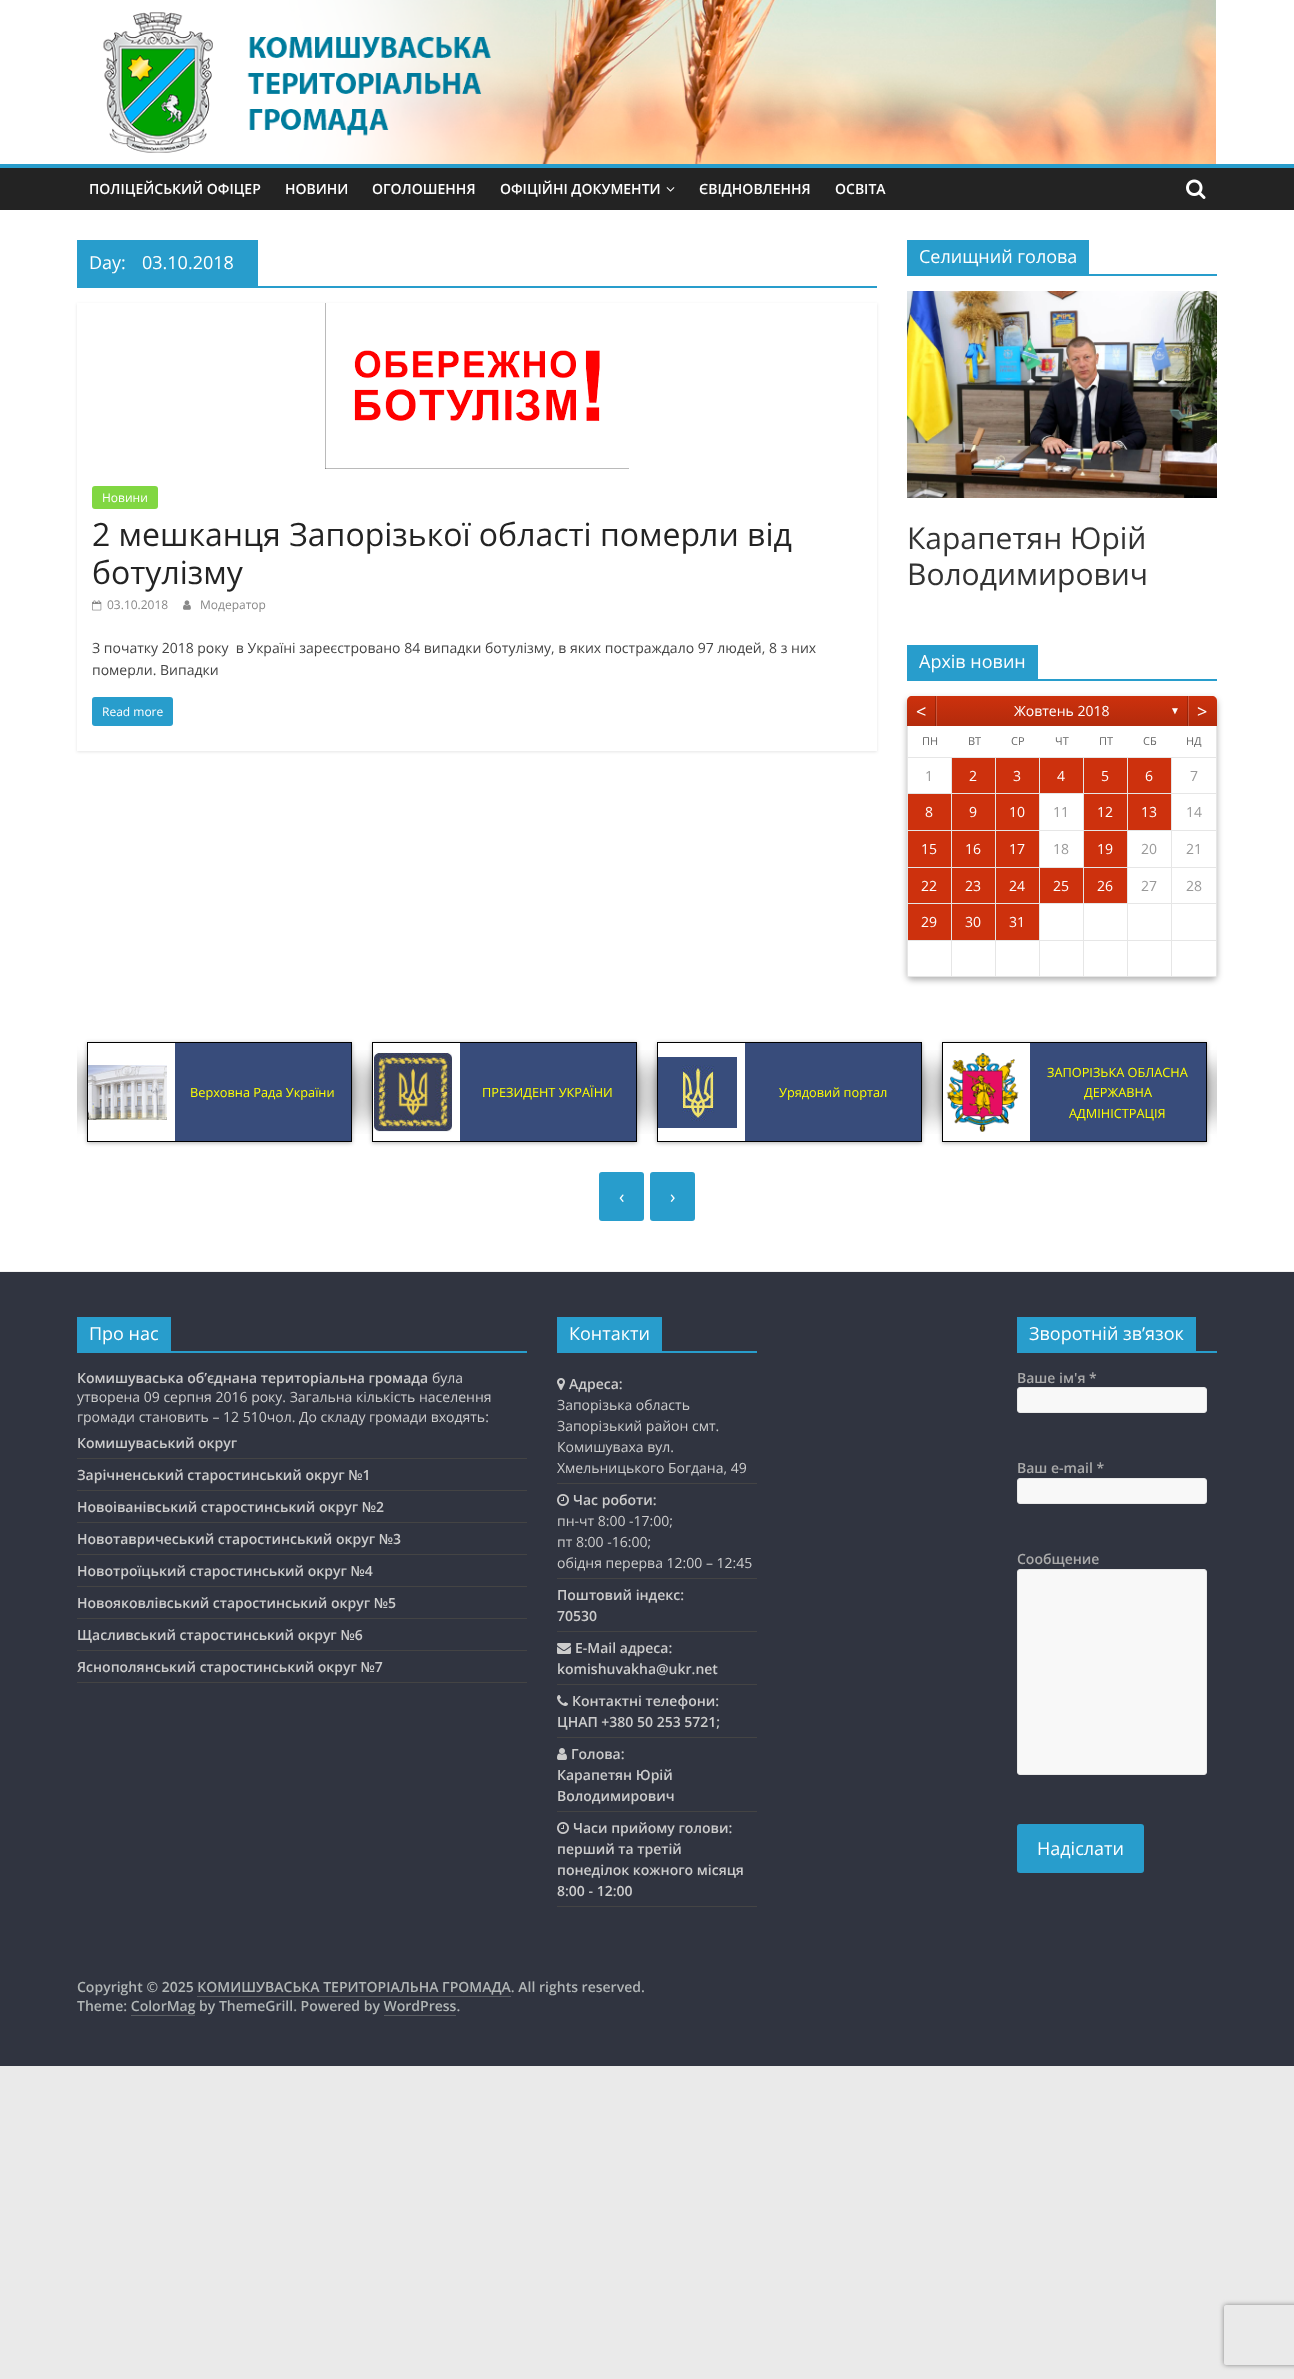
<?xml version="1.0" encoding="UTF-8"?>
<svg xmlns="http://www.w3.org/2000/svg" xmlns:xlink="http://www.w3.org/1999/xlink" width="1294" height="2379">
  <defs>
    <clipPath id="clip1"><path d="M 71 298 h 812 v 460 h -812 z m 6 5 h 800 v 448 h -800 z" clip-rule="evenodd" /></clipPath>
    <clipPath id="clip2"><path d="M 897 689 h 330 v 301 h -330 z m 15 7 h 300 c 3 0 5 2 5 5 v 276 h -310 v -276 c 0 -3 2 -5 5 -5 z" clip-rule="evenodd" /></clipPath>
    <linearGradient id="g1" gradientUnits="userSpaceOnUse" x1="1062" y1="696" x2="1062" y2="726"><stop offset="0" stop-color="#cd310d" /><stop offset="1" stop-color="#b32b0c" /></linearGradient>
    <linearGradient id="g2" gradientUnits="userSpaceOnUse" x1="1062" y1="696" x2="1062" y2="726"><stop offset="0" stop-color="#a4270a" /><stop offset="1" stop-color="#8f220a" /></linearGradient>
    <linearGradient id="g3" gradientUnits="userSpaceOnUse" x1="1062" y1="696" x2="1062" y2="726"><stop offset="0" stop-color="#d75a3d" /><stop offset="1" stop-color="#c2553d" /></linearGradient>
    <clipPath id="clip3"><rect x="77" y="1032" width="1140" height="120" /></clipPath>
    <clipPath id="clip4"><rect x="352" y="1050" width="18" height="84" /></clipPath>
    <clipPath id="clip5"><rect x="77" y="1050" width="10" height="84" /></clipPath>
    <clipPath id="clip6"><path d="M 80 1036 h 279 v 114 h -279 z m 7 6 h 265 v 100 h -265 z" clip-rule="evenodd" /></clipPath>
    <clipPath id="clip7"><rect x="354" y="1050" width="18" height="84" /></clipPath>
    <clipPath id="clip8"><rect x="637" y="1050" width="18" height="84" /></clipPath>
    <clipPath id="clip9"><path d="M 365 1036 h 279 v 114 h -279 z m 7 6 h 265 v 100 h -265 z" clip-rule="evenodd" /></clipPath>
    <clipPath id="clip10"><rect x="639" y="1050" width="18" height="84" /></clipPath>
    <clipPath id="clip11"><rect x="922" y="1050" width="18" height="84" /></clipPath>
    <clipPath id="clip12"><path d="M 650 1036 h 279 v 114 h -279 z m 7 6 h 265 v 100 h -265 z" clip-rule="evenodd" /></clipPath>
    <clipPath id="clip13"><rect x="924" y="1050" width="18" height="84" /></clipPath>
    <clipPath id="clip14"><rect x="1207" y="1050" width="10" height="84" /></clipPath>
    <clipPath id="clip15"><path d="M 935 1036 h 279 v 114 h -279 z m 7 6 h 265 v 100 h -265 z" clip-rule="evenodd" /></clipPath>
    <clipPath id="clip16"><path d="M 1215 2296 h 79 v 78 h -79 z m 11 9 h 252 c 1 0 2 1 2 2 v 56 c 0 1 -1 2 -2 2 h -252 c -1 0 -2 -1 -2 -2 v -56 c 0 -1 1 -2 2 -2 z" clip-rule="evenodd" /></clipPath>
  </defs>
  <rect width="100%" height="100%" fill="#eaeaea" />
  <rect width="1294" height="164" fill="#ffffff" />
  <image x="103" y="0" width="1113" height="164" xlink:href="image1.png" />
  <rect y="168" width="1294" height="42" fill="#232323" />
  <rect y="164" width="1294" height="4" fill="#289dcc" />
  <image x="666" y="187" width="9" height="5" xlink:href="image2.png" />
  <image x="1186" y="179" width="20" height="20" xlink:href="image3.png" />
  <rect y="210" width="1294" height="1061" fill="#ffffff" />
  <rect x="77" y="286" width="800" height="2" fill="#289dcc" />
  <rect x="77" y="240" width="181" height="46" fill="#289dcc" />
  <g clip-path="url(#clip1)">
    <rect x="77" y="304" width="800" height="448" fill="#000000" fill-opacity="0.1" filter="blur(1.5px)" />
  </g>
  <image x="325" y="303" width="304" height="166" xlink:href="image4.png" />
  <rect x="92" y="486" width="66" height="23" rx="3" fill="#81d742" />
  <image x="92" y="600" width="10" height="11" xlink:href="image5.png" />
  <image x="183" y="600" width="8" height="10" xlink:href="image6.png" />
  <rect x="92" y="697" width="81" height="29" rx="3" fill="#289dcc" />
  <rect x="907" y="274" width="310" height="2" fill="#289dcc" />
  <rect x="907" y="240" width="182" height="34" fill="#289dcc" />
  <image x="907" y="291" width="310" height="207" xlink:href="image7.png" />
  <rect x="907" y="679" width="310" height="2" fill="#289dcc" />
  <rect x="907" y="645" width="131" height="34" fill="#289dcc" />
  <g clip-path="url(#clip2)">
    <rect x="907" y="699" width="310" height="281" rx="5" fill="#000000" fill-opacity="0.3" filter="blur(3px)" />
  </g>
  <path d="M 912 696 h 300 c 3 0 5 2 5 5 v 25 h -310 v -25 c 0 -3 2 -5 5 -5 z" fill="url(#g1)" />
  <rect x="1187" y="696" width="1" height="30" fill="url(#g2)" />
  <rect x="1188" y="696" width="1" height="30" fill="url(#g3)" />
  <rect x="936" y="696" width="1" height="30" fill="url(#g3)" />
  <rect x="935" y="696" width="1" height="30" fill="url(#g2)" />
  <rect x="1216" y="726" width="1" height="31" fill="#e6e6e6" />
  <rect x="907" y="726" width="1" height="31" fill="#e6e6e6" />
  <rect x="907" y="757" width="310" height="1" fill="#e6e6e6" />
  <rect x="1216" y="757" width="1" height="220" fill="#e6e6e6" />
  <rect x="907" y="757" width="1" height="220" fill="#e6e6e6" />
  <rect x="951" y="758" width="1" height="219" fill="#e6e6e6" />
  <rect x="908" y="793" width="44" height="1" fill="#e6e6e6" />
  <rect x="952" y="758" width="43" height="35" fill="#cd310d" />
  <rect x="995" y="758" width="1" height="219" fill="#e6e6e6" />
  <rect x="952" y="793" width="44" height="1" fill="#e6e6e6" />
  <rect x="996" y="758" width="43" height="35" fill="#cd310d" />
  <rect x="1039" y="758" width="1" height="219" fill="#e6e6e6" />
  <rect x="996" y="793" width="44" height="1" fill="#e6e6e6" />
  <rect x="1040" y="758" width="43" height="35" fill="#cd310d" />
  <rect x="1083" y="758" width="1" height="219" fill="#e6e6e6" />
  <rect x="1040" y="793" width="44" height="1" fill="#e6e6e6" />
  <rect x="1084" y="758" width="43" height="35" fill="#cd310d" />
  <rect x="1127" y="758" width="1" height="219" fill="#e6e6e6" />
  <rect x="1084" y="793" width="44" height="1" fill="#e6e6e6" />
  <rect x="1128" y="758" width="43" height="35" fill="#cd310d" />
  <rect x="1171" y="758" width="1" height="219" fill="#e6e6e6" />
  <rect x="1128" y="793" width="88" height="1" fill="#e6e6e6" />
  <rect x="908" y="794" width="43" height="36" fill="#cd310d" />
  <rect x="908" y="830" width="308" height="1" fill="#e6e6e6" />
  <rect x="952" y="794" width="43" height="36" fill="#cd310d" />
  <rect x="996" y="794" width="43" height="36" fill="#cd310d" />
  <rect x="1084" y="794" width="43" height="36" fill="#cd310d" />
  <rect x="1128" y="794" width="43" height="36" fill="#cd310d" />
  <rect x="908" y="831" width="43" height="36" fill="#cd310d" />
  <rect x="908" y="867" width="308" height="1" fill="#e6e6e6" />
  <rect x="952" y="831" width="43" height="36" fill="#cd310d" />
  <rect x="996" y="831" width="43" height="36" fill="#cd310d" />
  <rect x="1084" y="831" width="43" height="36" fill="#cd310d" />
  <rect x="908" y="868" width="43" height="35" fill="#cd310d" />
  <rect x="908" y="903" width="308" height="1" fill="#e6e6e6" />
  <rect x="952" y="868" width="43" height="35" fill="#cd310d" />
  <rect x="996" y="868" width="43" height="35" fill="#cd310d" />
  <rect x="1040" y="868" width="43" height="35" fill="#cd310d" />
  <rect x="1084" y="868" width="43" height="35" fill="#cd310d" />
  <rect x="908" y="904" width="43" height="36" fill="#cd310d" />
  <rect x="908" y="940" width="308" height="1" fill="#e6e6e6" />
  <rect x="952" y="904" width="43" height="36" fill="#cd310d" />
  <rect x="996" y="904" width="43" height="36" fill="#cd310d" />
  <rect x="908" y="976" width="308" height="1" fill="#e6e6e6" />
  <g clip-path="url(#clip3)">
    <rect x="-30" y="1065" width="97" height="54" fill="#000000" fill-opacity="0.6" filter="blur(10px)" />
  </g>
  <g clip-path="url(#clip4)">
    <rect x="133" y="1065" width="219" height="54" fill="#000000" fill-opacity="0.6" filter="blur(10px)" />
  </g>
  <g clip-path="url(#clip3)">
    <g clip-path="url(#clip5)">
      <rect x="87" y="1065" width="219" height="54" fill="#000000" fill-opacity="0.6" filter="blur(10px)" />
    </g>
  </g>
  <g clip-path="url(#clip6)">
    <rect x="87" y="1043" width="265" height="100" fill="#000000" fill-opacity="0.3" filter="blur(2px)" />
  </g>
  <rect x="87.5" y="1042.5" width="264" height="99" fill="none" stroke="#000000" />
  <image x="88" y="1065" width="79" height="55" xlink:href="image8.png" />
  <g clip-path="url(#clip7)">
    <rect x="372" y="1065" width="219" height="54" fill="#000000" fill-opacity="0.6" filter="blur(10px)" />
  </g>
  <rect x="175" y="1043" width="176" height="98" fill="#384c7b" />
  <g clip-path="url(#clip8)">
    <rect x="418" y="1065" width="219" height="54" fill="#000000" fill-opacity="0.6" filter="blur(10px)" />
  </g>
  <g clip-path="url(#clip9)">
    <rect x="372" y="1043" width="265" height="100" fill="#000000" fill-opacity="0.3" filter="blur(2px)" />
  </g>
  <rect x="372.5" y="1042.5" width="264" height="99" fill="none" stroke="#000000" />
  <image x="373" y="1052" width="79" height="80" xlink:href="image9.png" />
  <g clip-path="url(#clip10)">
    <rect x="657" y="1065" width="219" height="54" fill="#000000" fill-opacity="0.6" filter="blur(10px)" />
  </g>
  <rect x="460" y="1043" width="176" height="98" fill="#384c7b" />
  <g clip-path="url(#clip11)">
    <rect x="703" y="1065" width="219" height="54" fill="#000000" fill-opacity="0.6" filter="blur(10px)" />
  </g>
  <g clip-path="url(#clip12)">
    <rect x="657" y="1043" width="265" height="100" fill="#000000" fill-opacity="0.3" filter="blur(2px)" />
  </g>
  <rect x="657.5" y="1042.5" width="264" height="99" fill="none" stroke="#000000" />
  <image x="658" y="1057" width="79" height="71" xlink:href="image10.png" />
  <g clip-path="url(#clip13)">
    <rect x="942" y="1065" width="219" height="54" fill="#000000" fill-opacity="0.6" filter="blur(10px)" />
  </g>
  <rect x="745" y="1043" width="176" height="98" fill="#384c7b" />
  <g clip-path="url(#clip3)">
    <g clip-path="url(#clip14)">
      <rect x="988" y="1065" width="219" height="54" fill="#000000" fill-opacity="0.6" filter="blur(10px)" />
    </g>
  </g>
  <g clip-path="url(#clip15)">
    <rect x="942" y="1043" width="265" height="100" fill="#000000" fill-opacity="0.3" filter="blur(2px)" />
  </g>
  <rect x="942.5" y="1042.5" width="264" height="99" fill="none" stroke="#000000" />
  <image x="946" y="1053" width="73" height="79" xlink:href="image11.png" />
  <g clip-path="url(#clip3)">
    <rect x="1227" y="1065" width="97" height="54" fill="#000000" fill-opacity="0.6" filter="blur(10px)" />
  </g>
  <rect x="1030" y="1043" width="176" height="98" fill="#384c7b" />
  <rect x="599" y="1172" width="45" height="49" rx="3" fill="#289dcc" />
  <rect x="650" y="1172" width="45" height="49" rx="3" fill="#289dcc" />
  <rect y="1272" width="1294" height="794" fill="#303440" />
  <rect y="1271" width="1294" height="1" fill="#f2f2f2" />
  <rect x="77" y="1351" width="450" height="2" fill="#289dcc" />
  <rect x="77" y="1317" width="94" height="34" fill="#289dcc" />
  <rect x="77" y="1458" width="450" height="1" fill="#444444" />
  <rect x="77" y="1490" width="450" height="1" fill="#444444" />
  <rect x="77" y="1522" width="450" height="1" fill="#444444" />
  <rect x="77" y="1554" width="450" height="1" fill="#444444" />
  <rect x="77" y="1586" width="450" height="1" fill="#444444" />
  <rect x="77" y="1618" width="450" height="1" fill="#444444" />
  <rect x="77" y="1650" width="450" height="1" fill="#444444" />
  <rect x="77" y="1682" width="450" height="1" fill="#444444" />
  <rect x="557" y="1351" width="200" height="2" fill="#289dcc" />
  <rect x="557" y="1317" width="105" height="34" fill="#289dcc" />
  <rect x="557" y="1483" width="200" height="1" fill="#444444" />
  <image x="557" y="1378" width="8" height="12" xlink:href="image12.png" />
  <rect x="557" y="1578" width="200" height="1" fill="#444444" />
  <image x="557" y="1494" width="12" height="12" xlink:href="image13.png" />
  <rect x="557" y="1631" width="200" height="1" fill="#444444" />
  <rect x="557" y="1684" width="200" height="1" fill="#444444" />
  <image x="557" y="1643" width="14" height="11" xlink:href="image14.png" />
  <rect x="557" y="1737" width="200" height="1" fill="#444444" />
  <image x="557" y="1695" width="11" height="11" xlink:href="image15.png" />
  <rect x="557" y="1811" width="200" height="1" fill="#444444" />
  <image x="557" y="1748" width="10" height="12" xlink:href="image16.png" />
  <rect x="557" y="1906" width="200" height="1" fill="#444444" />
  <image x="557" y="1822" width="12" height="12" xlink:href="image13.png" />
  <rect x="1017" y="1351" width="200" height="2" fill="#289dcc" />
  <rect x="1017" y="1317" width="179" height="34" fill="#289dcc" />
  <rect x="1017.5" y="1387.5" width="189" height="25" rx="2.5" fill="#f8f8f8" stroke="#eaeaea" />
  <rect x="1017.5" y="1478.5" width="189" height="25" rx="2.5" fill="#f8f8f8" stroke="#eaeaea" />
  <rect x="1017.5" y="1569.5" width="189" height="205" rx="2.5" fill="#f8f8f8" stroke="#eaeaea" />
  <rect x="1017" y="1824" width="127" height="49" rx="3" fill="#289dcc" />
  <rect x="197" y="1996" width="314" height="1" fill="#5a5d62" />
  <rect x="131" y="2015" width="64" height="1" fill="#5a5d62" />
  <rect x="384" y="2015" width="72" height="1" fill="#5a5d62" />
  <g clip-path="url(#clip16)">
    <rect x="1224" y="2305" width="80" height="60" rx="2" fill="#808080" filter="blur(2.5px)" />
  </g>
  <text x="89" y="194" style="font-family: Open Sans; font-size: 14px; font-weight: 600; fill: #ffffff">ПОЛІЦЕЙСЬКИЙ ОФІЦЕР</text>
  <text x="285" y="194" style="font-family: Open Sans; font-size: 14px; font-weight: 600; fill: #ffffff">НОВИНИ</text>
  <text x="372" y="194" style="font-family: Open Sans; font-size: 14px; font-weight: 600; fill: #ffffff">ОГОЛОШЕННЯ</text>
  <text x="500" y="194" style="font-family: Open Sans; font-size: 14px; font-weight: 600; fill: #ffffff">ОФІЦІЙНІ ДОКУМЕНТИ</text>
  <text x="699" y="194" style="font-family: Open Sans; font-size: 14px; font-weight: 600; fill: #ffffff">ЄВІДНОВЛЕННЯ</text>
  <text x="835" y="194" style="font-family: Open Sans; font-size: 14px; font-weight: 600; fill: #ffffff">ОСВIТА</text>
  <text x="89" y="269" style="font-family: Open Sans; font-size: 18px; fill: #ffffff">Day:</text>
  <text x="142" y="269" style="font-family: Open Sans; font-size: 18px; fill: #ffffff">03.10.2018</text>
  <text x="102" y="502" style="font-family: Open Sans; font-size: 12px; fill: #ffffff">Новини</text>
  <text x="92" y="546" style="font-family: Open Sans; font-size: 32px; fill: #232323">2 мешканця Запорізької області померли від</text>
  <text x="92" y="584" style="font-family: Open Sans; font-size: 32px; fill: #232323">ботулізму</text>
  <text x="107" y="609" style="font-family: Open Sans; font-size: 12px; fill: #888888">03.10.2018</text>
  <text x="200" y="609" style="font-family: Open Sans; font-size: 12px; fill: #888888">Модератор</text>
  <text x="92" y="653" style="font-family: Open Sans; font-size: 14px; fill: #444444" xml:space="preserve">З початку 2018 року  в Україні зареєстровано 84 випадки ботулізму, в яких постраждало 97 людей, 8 з них</text>
  <text x="92" y="675" style="font-family: Open Sans; font-size: 14px; fill: #444444">померли. Випадки</text>
  <text x="102" y="716" style="font-family: Open Sans; font-size: 12px; fill: #ffffff">Read more</text>
  <text x="919" y="263" style="font-family: Open Sans; font-size: 18px; fill: #ffffff">Селищний голова</text>
  <text x="907" y="549" style="font-family: Open Sans; font-size: 30px; fill: #333333">Карапетян Юрій</text>
  <text x="907" y="585" style="font-family: Open Sans; font-size: 30px; fill: #333333">Володимирович</text>
  <text x="919" y="668" style="font-family: Open Sans; font-size: 18px; fill: #ffffff">Архiв новин</text>
  <text x="916" y="718" style="font-family: Open Sans; font-size: 18px; fill: #ffffff">&lt;</text>
  <text x="1014" y="716" style="font-family: Open Sans; font-size: 14px; fill: #ffffff">Жовтень 2018</text>
  <text x="1170" y="714" style="font-family: Liberation Sans; font-size: 10px; fill: #ffffff">▼</text>
  <text x="1197" y="718" style="font-family: Open Sans; font-size: 18px; fill: #ffffff">&gt;</text>
  <text x="922" y="745" style="font-family: Open Sans; font-size: 11px; fill: #666666">ПН</text>
  <text x="968" y="745" style="font-family: Open Sans; font-size: 11px; fill: #666666">ВТ</text>
  <text x="1011" y="745" style="font-family: Open Sans; font-size: 11px; fill: #666666">СР</text>
  <text x="1055" y="745" style="font-family: Open Sans; font-size: 11px; fill: #666666">ЧТ</text>
  <text x="1099" y="745" style="font-family: Open Sans; font-size: 11px; fill: #666666">ПТ</text>
  <text x="1143" y="745" style="font-family: Open Sans; font-size: 11px; fill: #666666">СБ</text>
  <text x="1186" y="745" style="font-family: Open Sans; font-size: 11px; fill: #666666">НД</text>
  <text x="925" y="781" style="font-family: Open Sans; font-size: 14px; fill: #999999">1</text>
  <text x="969" y="781" style="font-family: Open Sans; font-size: 14px; fill: #ffffff">2</text>
  <text x="1013" y="781" style="font-family: Open Sans; font-size: 14px; fill: #ffffff">3</text>
  <text x="1057" y="781" style="font-family: Open Sans; font-size: 14px; fill: #ffffff">4</text>
  <text x="1101" y="781" style="font-family: Open Sans; font-size: 14px; fill: #ffffff">5</text>
  <text x="1145" y="781" style="font-family: Open Sans; font-size: 14px; fill: #ffffff">6</text>
  <text x="1190" y="781" style="font-family: Open Sans; font-size: 14px; fill: #999999">7</text>
  <text x="925" y="817" style="font-family: Open Sans; font-size: 14px; fill: #ffffff">8</text>
  <text x="969" y="817" style="font-family: Open Sans; font-size: 14px; fill: #ffffff">9</text>
  <text x="1009" y="817" style="font-family: Open Sans; font-size: 14px; fill: #ffffff">10</text>
  <text x="1053" y="817" style="font-family: Open Sans; font-size: 14px; fill: #999999">11</text>
  <text x="1097" y="817" style="font-family: Open Sans; font-size: 14px; fill: #ffffff">12</text>
  <text x="1141" y="817" style="font-family: Open Sans; font-size: 14px; fill: #ffffff">13</text>
  <text x="1186" y="817" style="font-family: Open Sans; font-size: 14px; fill: #999999">14</text>
  <text x="921" y="854" style="font-family: Open Sans; font-size: 14px; fill: #ffffff">15</text>
  <text x="965" y="854" style="font-family: Open Sans; font-size: 14px; fill: #ffffff">16</text>
  <text x="1009" y="854" style="font-family: Open Sans; font-size: 14px; fill: #ffffff">17</text>
  <text x="1053" y="854" style="font-family: Open Sans; font-size: 14px; fill: #999999">18</text>
  <text x="1097" y="854" style="font-family: Open Sans; font-size: 14px; fill: #ffffff">19</text>
  <text x="1141" y="854" style="font-family: Open Sans; font-size: 14px; fill: #999999">20</text>
  <text x="1186" y="854" style="font-family: Open Sans; font-size: 14px; fill: #999999">21</text>
  <text x="921" y="891" style="font-family: Open Sans; font-size: 14px; fill: #ffffff">22</text>
  <text x="965" y="891" style="font-family: Open Sans; font-size: 14px; fill: #ffffff">23</text>
  <text x="1009" y="891" style="font-family: Open Sans; font-size: 14px; fill: #ffffff">24</text>
  <text x="1053" y="891" style="font-family: Open Sans; font-size: 14px; fill: #ffffff">25</text>
  <text x="1097" y="891" style="font-family: Open Sans; font-size: 14px; fill: #ffffff">26</text>
  <text x="1141" y="891" style="font-family: Open Sans; font-size: 14px; fill: #999999">27</text>
  <text x="1186" y="891" style="font-family: Open Sans; font-size: 14px; fill: #999999">28</text>
  <text x="921" y="927" style="font-family: Open Sans; font-size: 14px; fill: #ffffff">29</text>
  <text x="965" y="927" style="font-family: Open Sans; font-size: 14px; fill: #ffffff">30</text>
  <text x="1009" y="927" style="font-family: Open Sans; font-size: 14px; fill: #ffffff">31</text>
  <text x="190" y="1097" style="font-family: Open Sans; font-size: 12.75px; fill: #ffff00">Верховна Рада України</text>
  <text x="482" y="1097" style="font-family: Open Sans; font-size: 12.75px; fill: #ffff00">ПРЕЗИДЕНТ УКРАЇНИ</text>
  <text x="779" y="1097" style="font-family: Open Sans; font-size: 12.75px; fill: #ffff00">Урядовий портал</text>
  <text x="1047" y="1077" style="font-family: Open Sans; font-size: 12.75px; fill: #ffff00">ЗАПОРІЗЬКА ОБЛАСНА</text>
  <text x="1084" y="1097" style="font-family: Open Sans; font-size: 12.75px; fill: #ffff00">ДЕРЖАВНА</text>
  <text x="1069" y="1118" style="font-family: Open Sans; font-size: 12.75px; fill: #ffff00">АДМІНІСТРАЦІЯ</text>
  <text x="619" y="1203" style="font-family: Open Sans; font-size: 18px; fill: #ffffff">‹</text>
  <text x="670" y="1203" style="font-family: Open Sans; font-size: 18px; fill: #ffffff">›</text>
  <text x="89" y="1340" style="font-family: Open Sans; font-size: 18px; fill: #ffffff">Про нас</text>
  <text x="77" y="1383" style="font-family: Open Sans; font-size: 14px; font-weight: 600; fill: #cccccc">Комишуваська об’єднана територіальна громада</text>
  <text x="432" y="1383" style="font-family: Open Sans; font-size: 14px; fill: #cccccc">була</text>
  <text x="77" y="1402" style="font-family: Open Sans; font-size: 14px; fill: #cccccc">утворена 09 серпня 2016 року. Загальна кількість населення</text>
  <text x="77" y="1422" style="font-family: Open Sans; font-size: 14px; fill: #cccccc">громади становить – 12 510чол. До складу громади входять:</text>
  <text x="77" y="1448" style="font-family: Open Sans; font-size: 14px; font-weight: 600; fill: #cccccc">Комишуваський округ</text>
  <text x="77" y="1480" style="font-family: Open Sans; font-size: 14px; font-weight: 600; fill: #cccccc">Зарічненський старостинський округ №1</text>
  <text x="77" y="1512" style="font-family: Open Sans; font-size: 14px; font-weight: 600; fill: #cccccc">Новоіванівський старостинський округ №2</text>
  <text x="77" y="1544" style="font-family: Open Sans; font-size: 14px; font-weight: 600; fill: #cccccc">Новотавричеський старостинський округ №3</text>
  <text x="77" y="1576" style="font-family: Open Sans; font-size: 14px; font-weight: 600; fill: #cccccc">Новотроїцький старостинський округ №4</text>
  <text x="77" y="1608" style="font-family: Open Sans; font-size: 14px; font-weight: 600; fill: #cccccc">Новояковлівський старостинський округ №5</text>
  <text x="77" y="1640" style="font-family: Open Sans; font-size: 14px; font-weight: 600; fill: #cccccc">Щасливський старостинський округ №6</text>
  <text x="77" y="1672" style="font-family: Open Sans; font-size: 14px; font-weight: 600; fill: #cccccc">Яснополянський старостинський округ №7</text>
  <text x="569" y="1340" style="font-family: Open Sans; font-size: 18px; fill: #ffffff">Контакти</text>
  <text x="569" y="1389" style="font-family: Open Sans; font-size: 14px; font-weight: 600; fill: #cccccc">Адреса:</text>
  <text x="557" y="1410" style="font-family: Open Sans; font-size: 14px; fill: #cccccc">Запорізька область</text>
  <text x="557" y="1431" style="font-family: Open Sans; font-size: 14px; fill: #cccccc">Запорізький район смт.</text>
  <text x="557" y="1452" style="font-family: Open Sans; font-size: 14px; fill: #cccccc">Комишуваха вул.</text>
  <text x="557" y="1473" style="font-family: Open Sans; font-size: 14px; fill: #cccccc">Хмельницького Богдана, 49</text>
  <text x="573" y="1505" style="font-family: Open Sans; font-size: 14px; font-weight: 600; fill: #cccccc">Час роботи:</text>
  <text x="557" y="1526" style="font-family: Open Sans; font-size: 14px; fill: #cccccc">пн-чт 8:00 -17:00;</text>
  <text x="557" y="1547" style="font-family: Open Sans; font-size: 14px; fill: #cccccc">пт 8:00 -16:00;</text>
  <text x="557" y="1568" style="font-family: Open Sans; font-size: 14px; fill: #cccccc">обідня перерва 12:00 – 12:45</text>
  <text x="557" y="1600" style="font-family: Open Sans; font-size: 14px; font-weight: 600; fill: #cccccc">Поштовий індекс:</text>
  <text x="557" y="1621" style="font-family: Open Sans; font-size: 14px; font-weight: 600; fill: #cccccc">70530</text>
  <text x="575" y="1653" style="font-family: Open Sans; font-size: 14px; font-weight: 600; fill: #cccccc">E-Mail адреса:</text>
  <text x="557" y="1674" style="font-family: Open Sans; font-size: 14px; font-weight: 600; fill: #cccccc">komishuvakha@ukr.net</text>
  <text x="572" y="1706" style="font-family: Open Sans; font-size: 14px; font-weight: 600; fill: #cccccc">Контактні телефони:</text>
  <text x="557" y="1727" style="font-family: Open Sans; font-size: 14px; font-weight: 600; fill: #cccccc">ЦНАП +380 50 253 5721;</text>
  <text x="571" y="1759" style="font-family: Open Sans; font-size: 14px; font-weight: 600; fill: #cccccc">Голова:</text>
  <text x="557" y="1780" style="font-family: Open Sans; font-size: 14px; font-weight: 600; fill: #cccccc">Карапетян Юрій</text>
  <text x="557" y="1801" style="font-family: Open Sans; font-size: 14px; font-weight: 600; fill: #cccccc">Володимирович</text>
  <text x="573" y="1833" style="font-family: Open Sans; font-size: 14px; font-weight: 600; fill: #cccccc">Часи прийому голови:</text>
  <text x="557" y="1854" style="font-family: Open Sans; font-size: 14px; font-weight: 600; fill: #cccccc">перший та третiй</text>
  <text x="557" y="1875" style="font-family: Open Sans; font-size: 14px; font-weight: 600; fill: #cccccc">понедiлок кожного мiсяця</text>
  <text x="557" y="1896" style="font-family: Open Sans; font-size: 14px; font-weight: 600; fill: #cccccc">8:00 - 12:00</text>
  <text x="1029" y="1340" style="font-family: Open Sans; font-size: 18px; fill: #ffffff">Зворотній зв’язок</text>
  <text x="1017" y="1383" style="font-family: Open Sans; font-size: 14px; font-weight: 600; fill: #aaaaaa">Ваше ім'я *</text>
  <text x="1017" y="1473" style="font-family: Open Sans; font-size: 14px; font-weight: 600; fill: #aaaaaa">Ваш e-mail *</text>
  <text x="1017" y="1564" style="font-family: Open Sans; font-size: 14px; font-weight: 600; fill: #aaaaaa">Сообщение</text>
  <text x="1037" y="1855" style="font-family: Open Sans; font-size: 18px; fill: #ffffff">Надіслати</text>
  <text x="77" y="1992" style="font-family: Open Sans; font-size: 14px; font-weight: 600; fill: #b1b6b6">Copyright © 2025 КОМИШУВАСЬКА ТЕРИТОРІАЛЬНА ГРОМАДА. All rights reserved.</text>
  <text x="77" y="2011" style="font-family: Open Sans; font-size: 14px; font-weight: 600; fill: #b1b6b6">Theme: ColorMag by ThemeGrill. Powered by WordPress.</text>
</svg>
